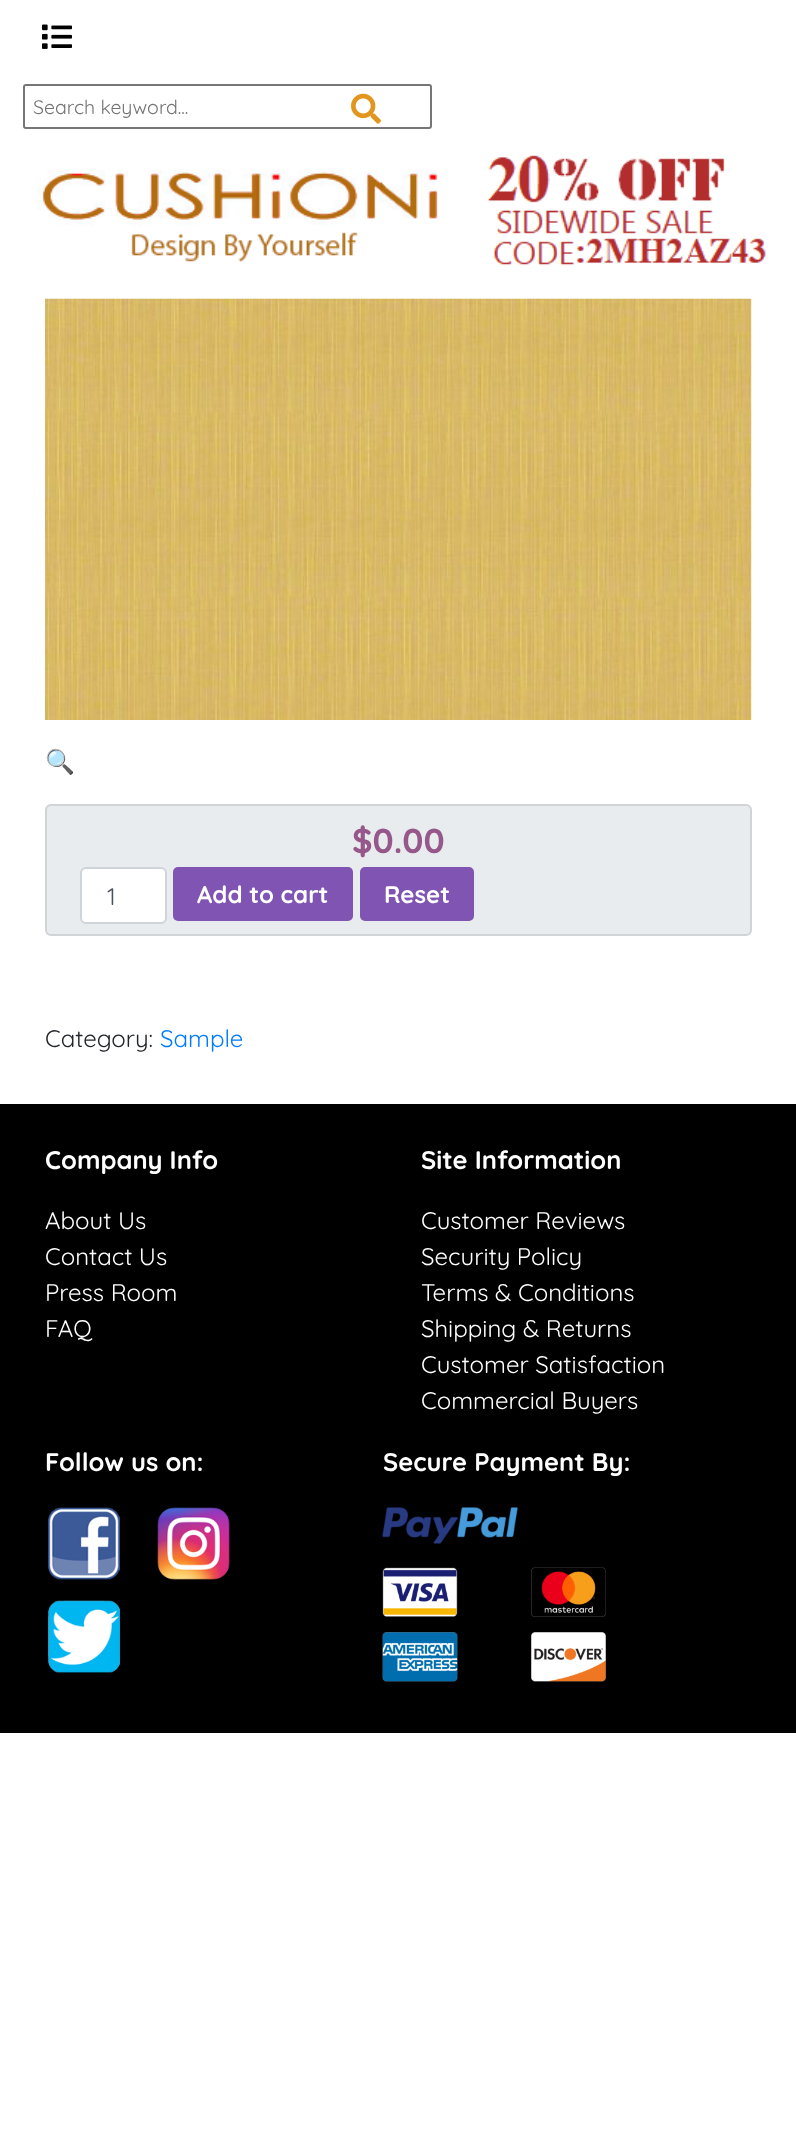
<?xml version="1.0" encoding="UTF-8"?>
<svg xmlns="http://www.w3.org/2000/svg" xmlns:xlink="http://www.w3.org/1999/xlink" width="796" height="2147">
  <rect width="100%" height="100%" fill="#ffffff" />
  <image x="42" y="24" width="30" height="25" xlink:href="image1.png" />
  <rect x="24" y="85" width="407" height="43" rx="2" fill="none" stroke="#767676" stroke-width="2" />
  <image x="351" y="93" width="30" height="31" xlink:href="image2.png" />
  <image x="36" y="169" width="402" height="93" xlink:href="image3.png" />
  <image x="487" y="155" width="280" height="110" xlink:href="image4.png" />
  <image x="45" y="298" width="707" height="422" xlink:href="image5.png" />
  <rect x="45" y="804" width="707" height="132" rx="6" fill="#e9ecef" />
  <rect x="46" y="805" width="705" height="130" rx="5" fill="none" stroke="#000000" stroke-opacity="0.1" stroke-width="2" />
  <rect x="81" y="868" width="85" height="55" rx="5" fill="#ffffff" stroke="#ced4da" stroke-width="2" />
  <rect x="173" y="867" width="180" height="54" rx="5" fill="#7f54b3" />
  <rect x="360" y="867" width="114" height="54" rx="5" fill="#7f54b3" />
  <rect y="1104" width="796" height="629" fill="#000000" />
  <image x="48" y="1507" width="72" height="73" xlink:href="image6.png" />
  <image x="157" y="1507" width="73" height="73" xlink:href="image7.png" />
  <image x="48" y="1600" width="72" height="73" xlink:href="image8.png" />
  <image x="382" y="1507" width="136" height="37" xlink:href="image9.png" />
  <image x="382" y="1567" width="76" height="50" xlink:href="image10.png" />
  <image x="531" y="1567" width="75" height="50" xlink:href="image11.png" />
  <image x="382" y="1632" width="76" height="50" xlink:href="image12.png" />
  <image x="531" y="1632" width="75" height="50" xlink:href="image13.png" />
  <text x="33" y="114" style="font-family: Quicksand; font-size: 19.5px; fill: #757575">Search keyword...</text>
  <text x="45" y="770" style="font-family: Noto Color Emoji; font-size: 24px; fill: #007bff">🔍</text>
  <text x="352" y="853" style="font-family: Quicksand; font-size: 34.5px; font-weight: bold; fill: #96588a">$0.00</text>
  <text x="107" y="905" style="font-family: Quicksand; font-size: 24px; fill: #495057">1</text>
  <text x="197" y="903" style="font-family: Quicksand; font-size: 24px; font-weight: bold; fill: #ffffff">Add to cart</text>
  <text x="384" y="903" style="font-family: Quicksand; font-size: 24px; font-weight: bold; fill: #ffffff">Reset</text>
  <text x="45" y="1047" style="font-family: Quicksand; font-size: 24px; fill: #212529">Category:</text>
  <text x="160" y="1047" style="font-family: Quicksand; font-size: 24px; fill: #007bff">Sample</text>
  <text x="45" y="1169" style="font-family: Quicksand; font-size: 25.5px; font-weight: bold; fill: #ffffff">Company Info</text>
  <text x="45" y="1229" style="font-family: Quicksand; font-size: 24px; fill: #ffffff">About Us</text>
  <text x="45" y="1265" style="font-family: Quicksand; font-size: 24px; fill: #ffffff">Contact Us</text>
  <text x="45" y="1301" style="font-family: Quicksand; font-size: 24px; fill: #ffffff">Press Room</text>
  <text x="45" y="1337" style="font-family: Quicksand; font-size: 24px; fill: #ffffff">FAQ</text>
  <text x="421" y="1169" style="font-family: Quicksand; font-size: 25.5px; font-weight: bold; fill: #ffffff">Site Information</text>
  <text x="421" y="1229" style="font-family: Quicksand; font-size: 24px; fill: #ffffff">Customer Reviews</text>
  <text x="421" y="1265" style="font-family: Quicksand; font-size: 24px; fill: #ffffff">Security Policy</text>
  <text x="421" y="1301" style="font-family: Quicksand; font-size: 24px; fill: #ffffff">Terms &amp; Conditions</text>
  <text x="421" y="1337" style="font-family: Quicksand; font-size: 24px; fill: #ffffff">Shipping &amp; Returns</text>
  <text x="421" y="1373" style="font-family: Quicksand; font-size: 24px; fill: #ffffff">Customer Satisfaction</text>
  <text x="421" y="1409" style="font-family: Quicksand; font-size: 24px; fill: #ffffff">Commercial Buyers</text>
  <text x="45" y="1471" style="font-family: Quicksand; font-size: 25.5px; font-weight: bold; fill: #ffffff">Follow us on:</text>
  <text x="383" y="1471" style="font-family: Quicksand; font-size: 25.5px; font-weight: bold; fill: #ffffff">Secure Payment By:</text>
</svg>
